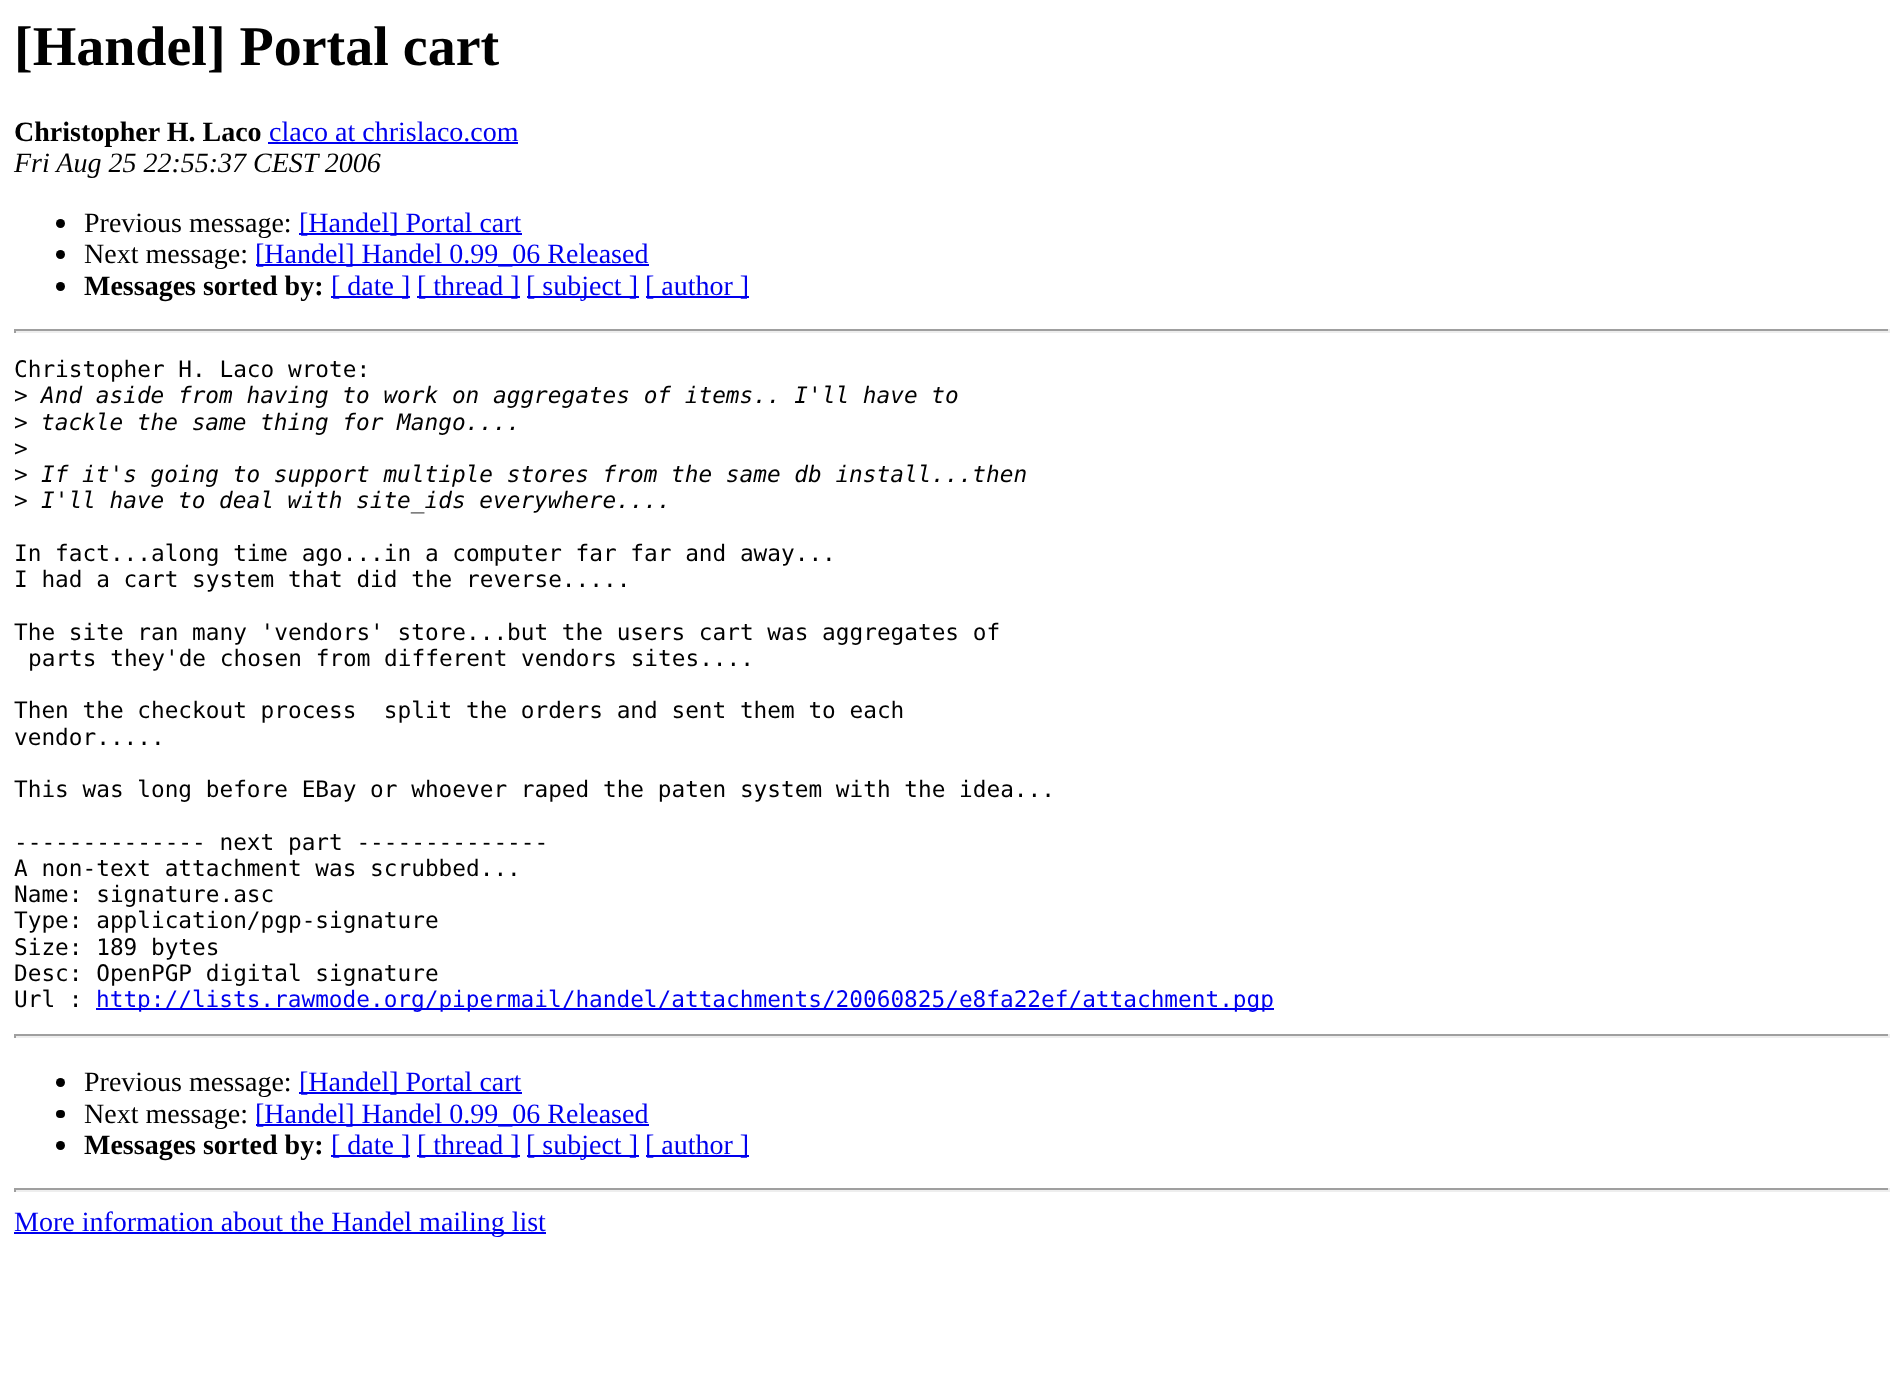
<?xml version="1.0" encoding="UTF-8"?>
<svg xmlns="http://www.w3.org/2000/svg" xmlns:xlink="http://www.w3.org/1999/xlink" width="1904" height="1382">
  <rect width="100%" height="100%" fill="#ffffff" />
  <rect x="268" y="142" width="250" height="2" fill="#0000ee" />
  <circle cx="60.5" cy="223.5" r="4.5" fill="#000000" />
  <rect x="299" y="233" width="223" height="2" fill="#0000ee" />
  <circle cx="60.5" cy="254.5" r="4.5" fill="#000000" />
  <rect x="256" y="264" width="393" height="2" fill="#0000ee" />
  <circle cx="60.5" cy="286.5" r="4.5" fill="#000000" />
  <rect x="331" y="296" width="79" height="2" fill="#0000ee" />
  <rect x="417" y="296" width="103" height="2" fill="#0000ee" />
  <rect x="527" y="296" width="112" height="2" fill="#0000ee" />
  <rect x="646" y="296" width="103" height="2" fill="#0000ee" />
  <rect x="14" y="329" width="1876" height="2" fill="#9f9f9f" />
  <rect x="1888" y="329" width="2" height="4" fill="#eeeeee" />
  <rect x="14" y="331" width="1876" height="2" fill="#eeeeee" />
  <rect x="14" y="329" width="2" height="4" fill="#9f9f9f" />
  <rect x="96" y="1008" width="1178" height="2" fill="#0000ee" />
  <rect x="14" y="1034" width="1876" height="2" fill="#9f9f9f" />
  <rect x="1888" y="1034" width="2" height="4" fill="#eeeeee" />
  <rect x="14" y="1036" width="1876" height="2" fill="#eeeeee" />
  <rect x="14" y="1034" width="2" height="4" fill="#9f9f9f" />
  <circle cx="60.5" cy="1082.5" r="4.5" fill="#000000" />
  <rect x="299" y="1092" width="223" height="2" fill="#0000ee" />
  <rect x="56" y="1110" width="9" height="8" rx="4" fill="#000000" />
  <rect x="256" y="1124" width="393" height="2" fill="#0000ee" />
  <circle cx="60.5" cy="1145.5" r="4.5" fill="#000000" />
  <rect x="331" y="1155" width="79" height="2" fill="#0000ee" />
  <rect x="417" y="1155" width="103" height="2" fill="#0000ee" />
  <rect x="527" y="1155" width="112" height="2" fill="#0000ee" />
  <rect x="646" y="1155" width="103" height="2" fill="#0000ee" />
  <rect x="14" y="1188" width="1876" height="2" fill="#9f9f9f" />
  <rect x="1888" y="1188" width="2" height="4" fill="#eeeeee" />
  <rect x="14" y="1190" width="1876" height="2" fill="#eeeeee" />
  <rect x="14" y="1188" width="2" height="4" fill="#9f9f9f" />
  <rect x="14" y="1232" width="532" height="2" fill="#0000ee" />
  <text x="14" y="65" style="font-family: Liberation Serif; font-size: 56px; font-weight: bold; fill: #000000">[Handel] Portal cart</text>
  <text x="14" y="141" style="font-family: Liberation Serif; font-size: 28px; font-weight: bold; fill: #000000">Christopher H. Laco</text>
  <text x="269" y="141" style="font-family: Liberation Serif; font-size: 28px; fill: #0000ee">claco at chrislaco.com</text>
  <text x="14" y="172" style="font-family: Liberation Serif; font-size: 28px; font-style: italic; fill: #000000">Fri Aug 25 22:55:37 CEST 2006</text>
  <text x="84" y="232" style="font-family: Liberation Serif; font-size: 28px; fill: #000000">Previous message:</text>
  <text x="299" y="232" style="font-family: Liberation Serif; font-size: 28px; fill: #0000ee">[Handel] Portal cart</text>
  <text x="84" y="263" style="font-family: Liberation Serif; font-size: 28px; fill: #000000">Next message:</text>
  <text x="255" y="263" style="font-family: Liberation Serif; font-size: 28px; fill: #0000ee">[Handel] Handel 0.99_06 Released</text>
  <text x="84" y="295" style="font-family: Liberation Serif; font-size: 28px; font-weight: bold; fill: #000000">Messages sorted by:</text>
  <text x="331" y="295" style="font-family: Liberation Serif; font-size: 28px; fill: #0000ee">[ date ]</text>
  <text x="417" y="295" style="font-family: Liberation Serif; font-size: 28px; fill: #0000ee">[ thread ]</text>
  <text x="526" y="295" style="font-family: Liberation Serif; font-size: 28px; fill: #0000ee">[ subject ]</text>
  <text x="645" y="295" style="font-family: Liberation Serif; font-size: 28px; fill: #0000ee">[ author ]</text>
  <text x="14" y="377" style="font-family: DejaVu Sans Mono; font-size: 22.75px; fill: #000000">Christopher H. Laco wrote:</text>
  <text x="14" y="403" style="font-family: DejaVu Sans Mono; font-size: 22.75px; fill: #000000">&gt;</text>
  <text x="41" y="403" style="font-family: DejaVu Sans Mono; font-size: 22.75px; font-style: italic; fill: #000000">And aside from having to work on aggregates of items.. I'll have to</text>
  <text x="14" y="430" style="font-family: DejaVu Sans Mono; font-size: 22.75px; fill: #000000">&gt;</text>
  <text x="41" y="430" style="font-family: DejaVu Sans Mono; font-size: 22.75px; font-style: italic; fill: #000000">tackle the same thing for Mango....</text>
  <text x="14" y="456" style="font-family: DejaVu Sans Mono; font-size: 22.75px; fill: #000000">&gt;</text>
  <text x="14" y="482" style="font-family: DejaVu Sans Mono; font-size: 22.75px; fill: #000000">&gt;</text>
  <text x="41" y="482" style="font-family: DejaVu Sans Mono; font-size: 22.75px; font-style: italic; fill: #000000">If it's going to support multiple stores from the same db install...then</text>
  <text x="14" y="508" style="font-family: DejaVu Sans Mono; font-size: 22.75px; fill: #000000">&gt;</text>
  <text x="41" y="508" style="font-family: DejaVu Sans Mono; font-size: 22.75px; font-style: italic; fill: #000000">I'll have to deal with site_ids everywhere....</text>
  <text x="14" y="561" style="font-family: DejaVu Sans Mono; font-size: 22.75px; fill: #000000">In fact...along time ago...in a computer far far and away...</text>
  <text x="14" y="587" style="font-family: DejaVu Sans Mono; font-size: 22.75px; fill: #000000">I had a cart system that did the reverse.....</text>
  <text x="14" y="640" style="font-family: DejaVu Sans Mono; font-size: 22.75px; fill: #000000">The site ran many 'vendors' store...but the users cart was aggregates of</text>
  <text x="28" y="666" style="font-family: DejaVu Sans Mono; font-size: 22.75px; fill: #000000">parts they'de chosen from different vendors sites....</text>
  <text x="14" y="718" style="font-family: DejaVu Sans Mono; font-size: 22.75px; fill: #000000" xml:space="preserve">Then the checkout process  split the orders and sent them to each</text>
  <text x="14" y="745" style="font-family: DejaVu Sans Mono; font-size: 22.75px; fill: #000000">vendor.....</text>
  <text x="14" y="797" style="font-family: DejaVu Sans Mono; font-size: 22.75px; fill: #000000">This was long before EBay or whoever raped the paten system with the idea...</text>
  <text x="14" y="850" style="font-family: DejaVu Sans Mono; font-size: 22.75px; fill: #000000">-------------- next part --------------</text>
  <text x="14" y="876" style="font-family: DejaVu Sans Mono; font-size: 22.75px; fill: #000000">A non-text attachment was scrubbed...</text>
  <text x="14" y="902" style="font-family: DejaVu Sans Mono; font-size: 22.75px; fill: #000000">Name: signature.asc</text>
  <text x="14" y="928" style="font-family: DejaVu Sans Mono; font-size: 22.75px; fill: #000000">Type: application/pgp-signature</text>
  <text x="14" y="955" style="font-family: DejaVu Sans Mono; font-size: 22.75px; fill: #000000">Size: 189 bytes</text>
  <text x="14" y="981" style="font-family: DejaVu Sans Mono; font-size: 22.75px; fill: #000000">Desc: OpenPGP digital signature</text>
  <text x="14" y="1007" style="font-family: DejaVu Sans Mono; font-size: 22.75px; fill: #000000">Url :</text>
  <text x="96" y="1007" style="font-family: DejaVu Sans Mono; font-size: 22.75px; fill: #0000ee">http://lists.rawmode.org/pipermail/handel/attachments/20060825/e8fa22ef/attachment.pgp</text>
  <text x="84" y="1091" style="font-family: Liberation Serif; font-size: 28px; fill: #000000">Previous message:</text>
  <text x="299" y="1091" style="font-family: Liberation Serif; font-size: 28px; fill: #0000ee">[Handel] Portal cart</text>
  <text x="84" y="1123" style="font-family: Liberation Serif; font-size: 28px; fill: #000000">Next message:</text>
  <text x="255" y="1123" style="font-family: Liberation Serif; font-size: 28px; fill: #0000ee">[Handel] Handel 0.99_06 Released</text>
  <text x="84" y="1154" style="font-family: Liberation Serif; font-size: 28px; font-weight: bold; fill: #000000">Messages sorted by:</text>
  <text x="331" y="1154" style="font-family: Liberation Serif; font-size: 28px; fill: #0000ee">[ date ]</text>
  <text x="417" y="1154" style="font-family: Liberation Serif; font-size: 28px; fill: #0000ee">[ thread ]</text>
  <text x="526" y="1154" style="font-family: Liberation Serif; font-size: 28px; fill: #0000ee">[ subject ]</text>
  <text x="645" y="1154" style="font-family: Liberation Serif; font-size: 28px; fill: #0000ee">[ author ]</text>
  <text x="14" y="1231" style="font-family: Liberation Serif; font-size: 28px; fill: #0000ee">More information about the Handel mailing list</text>
</svg>
